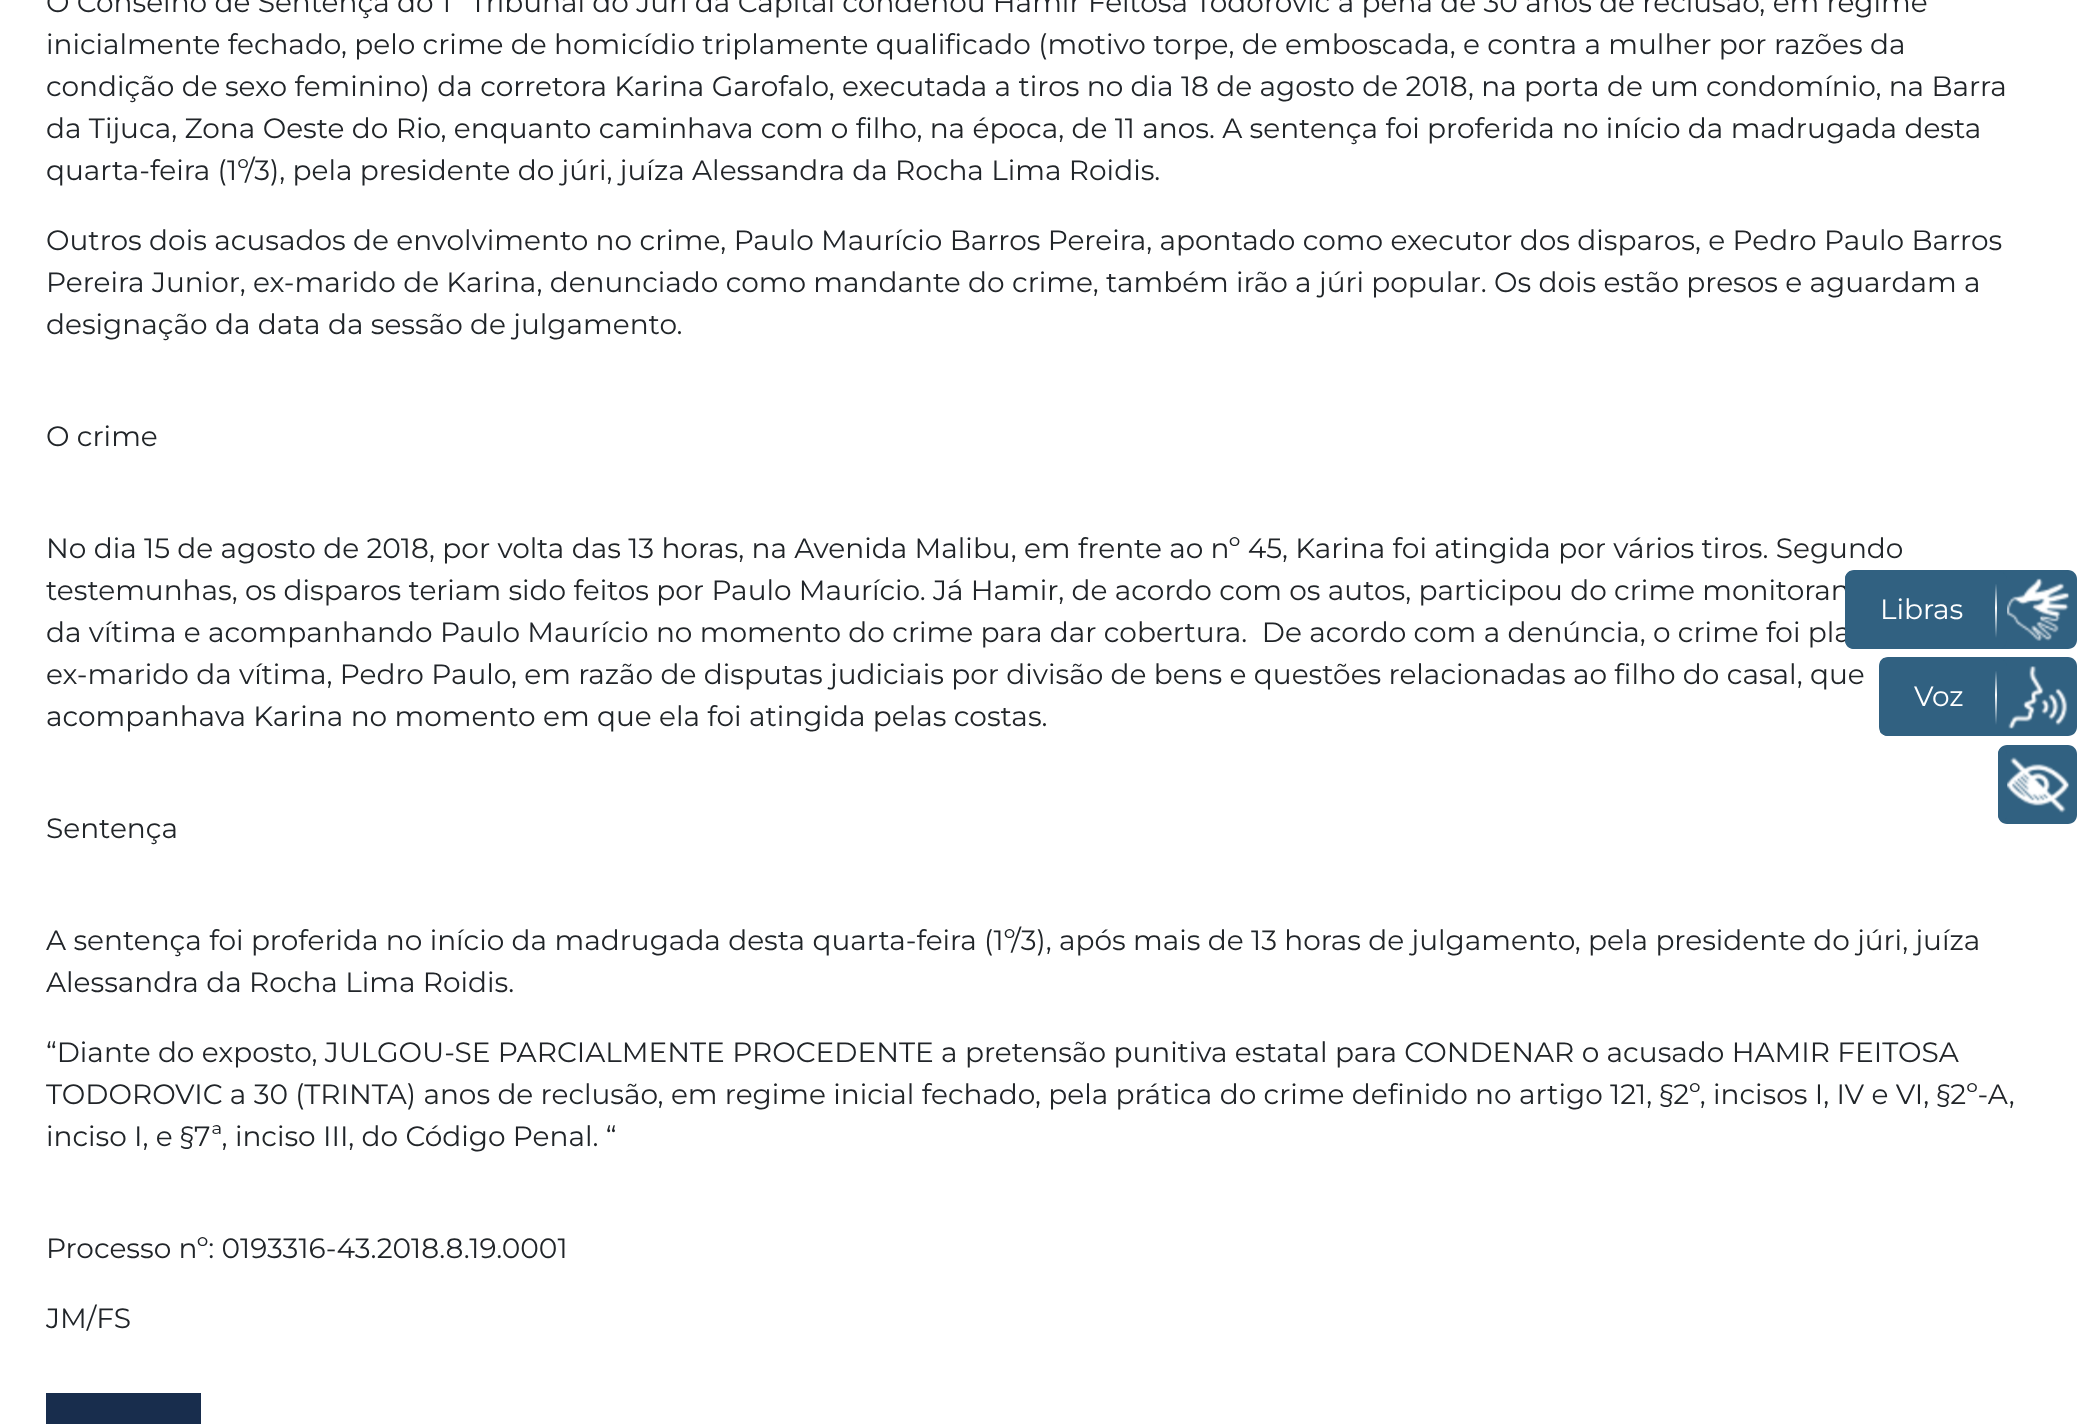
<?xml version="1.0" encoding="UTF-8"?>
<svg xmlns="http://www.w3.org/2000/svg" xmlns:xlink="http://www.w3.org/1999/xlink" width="2086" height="1424">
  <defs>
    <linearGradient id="g1" gradientUnits="userSpaceOnUse" x1="1996" y1="736" x2="1996" y2="657"><stop offset="0.14" stop-color="#316181" /><stop offset="0.52" stop-color="#ffffff" /><stop offset="0.83" stop-color="#316181" /></linearGradient>
    <linearGradient id="g2" gradientUnits="userSpaceOnUse" x1="1996" y1="649" x2="1996" y2="570"><stop offset="0.14" stop-color="#316181" /><stop offset="0.52" stop-color="#ffffff" /><stop offset="0.83" stop-color="#316181" /></linearGradient>
  </defs>
  <rect width="100%" height="100%" fill="#ffffff" />
  <rect x="46" y="1393" width="155" height="31" fill="#182d4d" />
  <path d="M 2068 657 h -180 c -5 0 -9 4 -9 9 v 61 c 0 5 4 9 9 9 h 180 c 5 0 9 -4 9 -9 v -61 c 0 -5 -4 -9 -9 -9 z" fill="#316181" />
  <path d="M 2002 736 c 3 -1 5 -4 5 -8 v -61 c 0 -5 -4 -9 -9 -9 h -114 c -2 1 -3 2 -4 4 v 70 c 2 2 4 4 8 4 z" fill="#316181" />
  <rect x="1995" y="671" width="2" height="54" fill="url(#g1)" />
  <image x="2008" y="666" width="60" height="63" xlink:href="image2.png" />
  <path d="M 2068 745 h -61 c -5 0 -9 4 -9 9 v 61 c 0 5 4 9 9 9 h 61 c 5 0 9 -4 9 -9 v -61 c 0 -5 -4 -9 -9 -9 z" fill="#316181" />
  <path d="M 2003 822 c 2 -1 4 -4 4 -7 v -60 c 0 -4 -2 -7 -5 -8 c -2 1 -4 4 -4 7 v 61 c 0 3 2 6 5 7 z" fill="#316181" />
  <image x="2007" y="757" width="63" height="56" xlink:href="image3.png" />
  <text x="46" y="12" style="font-family: Montserrat; font-size: 28px; fill: #212529">O Conselho de Sentença do 1º Tribunal do Júri da Capital condenou Hamir Feitosa Todorovic a pena de 30 anos de reclusão, em regime</text>
  <text x="46" y="54" style="font-family: Montserrat; font-size: 28px; fill: #212529">inicialmente fechado, pelo crime de homicídio triplamente qualificado (motivo torpe, de emboscada, e contra a mulher por razões da</text>
  <text x="46" y="96" style="font-family: Montserrat; font-size: 28px; fill: #212529">condição de sexo feminino) da corretora Karina Garofalo, executada a tiros no dia 18 de agosto de 2018, na porta de um condomínio, na Barra</text>
  <text x="46" y="138" style="font-family: Montserrat; font-size: 28px; fill: #212529">da Tijuca, Zona Oeste do Rio, enquanto caminhava com o filho, na época, de 11 anos. A sentença foi proferida no início da madrugada desta</text>
  <text x="46" y="180" style="font-family: Montserrat; font-size: 28px; fill: #212529">quarta-feira (1º/3), pela presidente do júri, juíza Alessandra da Rocha Lima Roidis.</text>
  <text x="46" y="250" style="font-family: Montserrat; font-size: 28px; fill: #212529">Outros dois acusados de envolvimento no crime, Paulo Maurício Barros Pereira, apontado como executor dos disparos, e Pedro Paulo Barros</text>
  <text x="46" y="292" style="font-family: Montserrat; font-size: 28px; fill: #212529">Pereira Junior, ex-marido de Karina, denunciado como mandante do crime, também irão a júri popular. Os dois estão presos e aguardam a</text>
  <text x="46" y="334" style="font-family: Montserrat; font-size: 28px; fill: #212529">designação da data da sessão de julgamento.</text>
  <text x="46" y="446" style="font-family: Montserrat; font-size: 28px; fill: #212529">O crime</text>
  <text x="46" y="558" style="font-family: Montserrat; font-size: 28px; fill: #212529">No dia 15 de agosto de 2018, por volta das 13 horas, na Avenida Malibu, em frente ao nº 45, Karina foi atingida por vários tiros. Segundo</text>
  <text x="46" y="600" style="font-family: Montserrat; font-size: 28px; fill: #212529">testemunhas, os disparos teriam sido feitos por Paulo Maurício. Já Hamir, de acordo com os autos, participou do crime monitoran</text>
  <text x="46" y="642" style="font-family: Montserrat; font-size: 28px; fill: #212529" xml:space="preserve">da vítima e acompanhando Paulo Maurício no momento do crime para dar cobertura.  De acordo com a denúncia, o crime foi pla</text>
  <text x="46" y="684" style="font-family: Montserrat; font-size: 28px; fill: #212529">ex-marido da vítima, Pedro Paulo, em razão de disputas judiciais por divisão de bens e questões relacionadas ao filho do casal, que</text>
  <text x="46" y="726" style="font-family: Montserrat; font-size: 28px; fill: #212529">acompanhava Karina no momento em que ela foi atingida pelas costas.</text>
  <text x="46" y="838" style="font-family: Montserrat; font-size: 28px; fill: #212529">Sentença</text>
  <text x="46" y="950" style="font-family: Montserrat; font-size: 28px; fill: #212529">A sentença foi proferida no início da madrugada desta quarta-feira (1º/3), após mais de 13 horas de julgamento, pela presidente do júri, juíza</text>
  <text x="46" y="992" style="font-family: Montserrat; font-size: 28px; fill: #212529">Alessandra da Rocha Lima Roidis.</text>
  <text x="46" y="1062" style="font-family: Montserrat; font-size: 28px; fill: #212529">“Diante do exposto, JULGOU-SE PARCIALMENTE PROCEDENTE a pretensão punitiva estatal para CONDENAR o acusado HAMIR FEITOSA</text>
  <text x="46" y="1104" style="font-family: Montserrat; font-size: 28px; fill: #212529">TODOROVIC a 30 (TRINTA) anos de reclusão, em regime inicial fechado, pela prática do crime definido no artigo 121, §2º, incisos I, IV e VI, §2º-A,</text>
  <text x="46" y="1146" style="font-family: Montserrat; font-size: 28px; fill: #212529">inciso I, e §7ª, inciso III, do Código Penal. “</text>
  <text x="46" y="1258" style="font-family: Montserrat; font-size: 28px; fill: #212529">Processo nº: 0193316-43.2018.8.19.0001</text>
  <text x="46" y="1328" style="font-family: Montserrat; font-size: 28px; fill: #212529">JM/FS</text>
  <path d="M 2068 570 h -214 c -5 0 -9 4 -9 9 v 61 c 0 5 4 9 9 9 h 214 c 5 0 9 -4 9 -9 v -61 c 0 -5 -4 -9 -9 -9 z" fill="#316181" />
  <path d="M 2001 649 c 3 -2 6 -5 6 -9 v -60 c 0 -5 -4 -9 -9 -9 h -148 c -3 2 -5 4 -5 8 v 61 c 0 5 4 9 9 9 z" fill="#316181" />
  <text x="1880" y="619" style="font-family: Montserrat; font-size: 28px; fill: #ffffff">Libras</text>
  <rect x="1995" y="584" width="2" height="54" fill="url(#g2)" />
  <image x="2007" y="578" width="63" height="63" xlink:href="image1.png" />
  <text x="1914" y="706" style="font-family: Montserrat; font-size: 28px; fill: #ffffff">Voz</text>
</svg>
